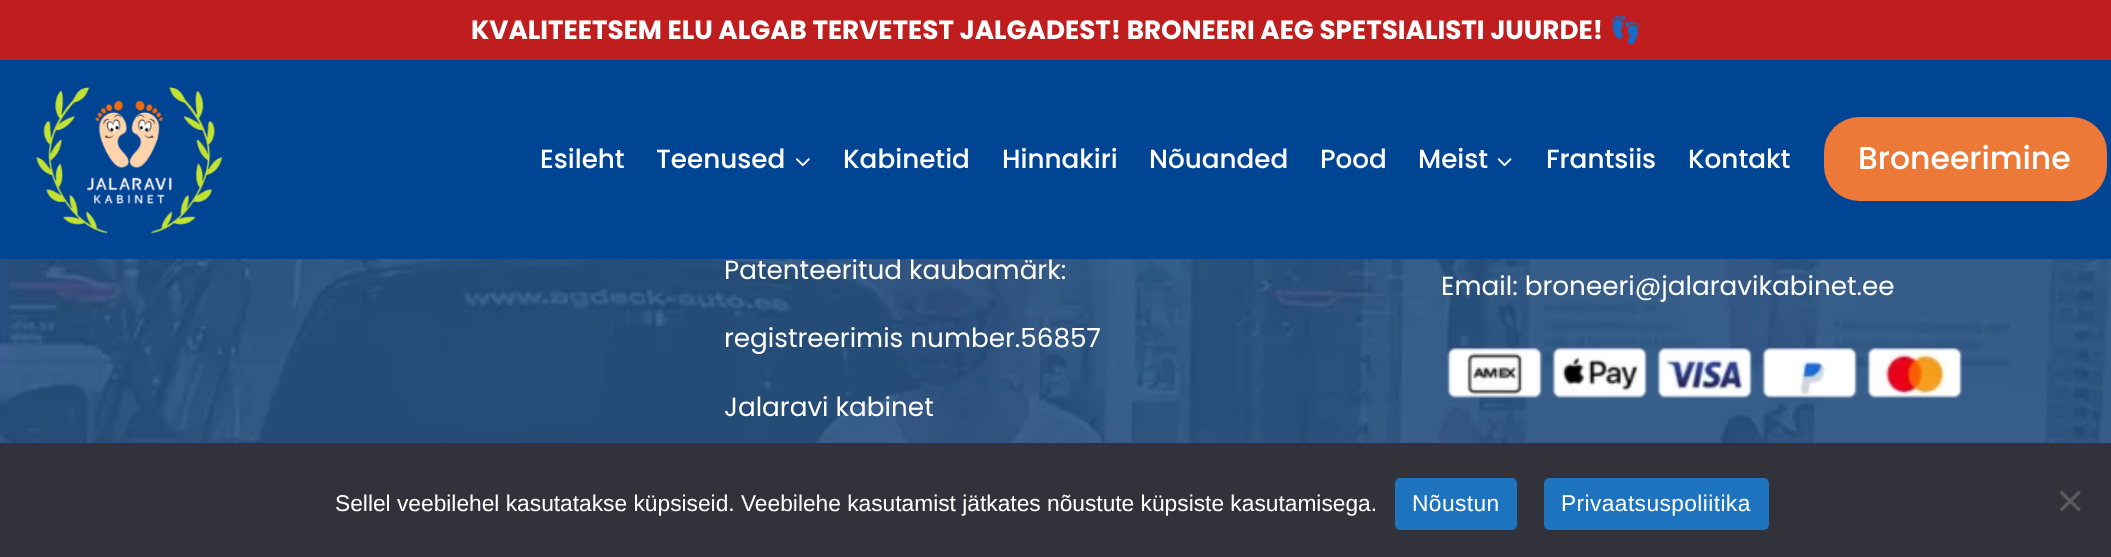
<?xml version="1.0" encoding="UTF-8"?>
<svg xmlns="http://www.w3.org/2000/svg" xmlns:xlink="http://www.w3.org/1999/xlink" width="2111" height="557">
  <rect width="100%" height="100%" fill="#ffffff" />
  <rect width="2111" height="60" fill="#c01e1e" />
  <rect y="60" width="2111" height="199" fill="#004494" />
  <image x="36" y="87" width="187" height="147" xlink:href="image1.png" />
  <image x="795" y="158" width="15" height="9" xlink:href="image2.png" />
  <image x="1497" y="158" width="15" height="9" xlink:href="image3.png" />
  <rect x="1824" y="117" width="283" height="84" rx="35" fill="#ec7938" />
  <image x="0" y="259" width="2111" height="184" xlink:href="image4.png" />
  <image x="1447" y="347" width="516" height="52" xlink:href="image5.png" />
  <rect y="443" width="2111" height="114" fill="#32323a" />
  <rect x="1395" y="478" width="122" height="52" rx="5" fill="#1e73be" />
  <rect x="1544" y="478" width="225" height="52" rx="5" fill="#1e73be" />
  <path d="M 2078.5 490.5 l 2.5 2.5 l -19 18.5 l -2.5 -2.5 z" fill="#59595d" />
  <path d="M 2059.5 493 l 2.5 -2.5 l 19 18.5 l -2.5 2.5 z" fill="#59595d" />
  <text x="471" y="39" style="font-family: Poppins; font-size: 26.25px; font-weight: bold; fill: #ffffff">KVALITEETSEM ELU ALGAB TERVETEST JALGADEST! BRONEERI AEG SPETSIALISTI JUURDE!</text>
  <text x="1609" y="39" style="font-family: Noto Color Emoji; font-size: 26.25px; font-weight: bold; fill: #ffffff">👣</text>
  <text x="540" y="168" style="font-family: Poppins; font-size: 26.25px; font-weight: 500; fill: #ffffff">Esileht</text>
  <text x="656" y="168" style="font-family: Poppins; font-size: 26.25px; font-weight: 500; fill: #ffffff">Teenused</text>
  <text x="843" y="168" style="font-family: Poppins; font-size: 26.25px; font-weight: 500; fill: #ffffff">Kabinetid</text>
  <text x="1002" y="168" style="font-family: Poppins; font-size: 26.25px; font-weight: 500; fill: #ffffff">Hinnakiri</text>
  <text x="1149" y="168" style="font-family: Poppins; font-size: 26.25px; font-weight: 500; fill: #ffffff">Nõuanded</text>
  <text x="1320" y="168" style="font-family: Poppins; font-size: 26.25px; font-weight: 500; fill: #ffffff">Pood</text>
  <text x="1418" y="168" style="font-family: Poppins; font-size: 26.25px; font-weight: 500; fill: #ffffff">Meist</text>
  <text x="1546" y="168" style="font-family: Poppins; font-size: 26.25px; font-weight: 500; fill: #ffffff">Frantsiis</text>
  <text x="1688" y="168" style="font-family: Poppins; font-size: 26.25px; font-weight: 500; fill: #ffffff">Kontakt</text>
  <text x="1858" y="169" style="font-family: Poppins; font-size: 31.5px; font-weight: 500; fill: #ffffff">Broneerimine</text>
  <text x="724" y="279" style="font-family: Poppins; font-size: 26.25px; fill: #ffffff">Patenteeritud kaubamärk:</text>
  <text x="724" y="347" style="font-family: Poppins; font-size: 26.25px; fill: #ffffff">registreerimis number.56857</text>
  <text x="724" y="416" style="font-family: Poppins; font-size: 26.25px; fill: #ffffff">Jalaravi kabinet</text>
  <text x="1441" y="295" style="font-family: Poppins; font-size: 26.25px; fill: #ffffff">Email: broneeri@jalaravikabinet.ee</text>
  <text x="335" y="511" style="font-family: Liberation Sans; font-size: 22.75px; fill: #ffffff">Sellel veebilehel kasutatakse küpsiseid. Veebilehe kasutamist jätkates nõustute küpsiste kasutamisega.</text>
  <text x="1412" y="511" style="font-family: Liberation Sans; font-size: 22.75px; letter-spacing: 0.4px; fill: #ffffff">Nõustun</text>
  <text x="1561" y="511" style="font-family: Liberation Sans; font-size: 22.75px; letter-spacing: 0.4px; fill: #ffffff">Privaatsuspoliitika</text>
</svg>
